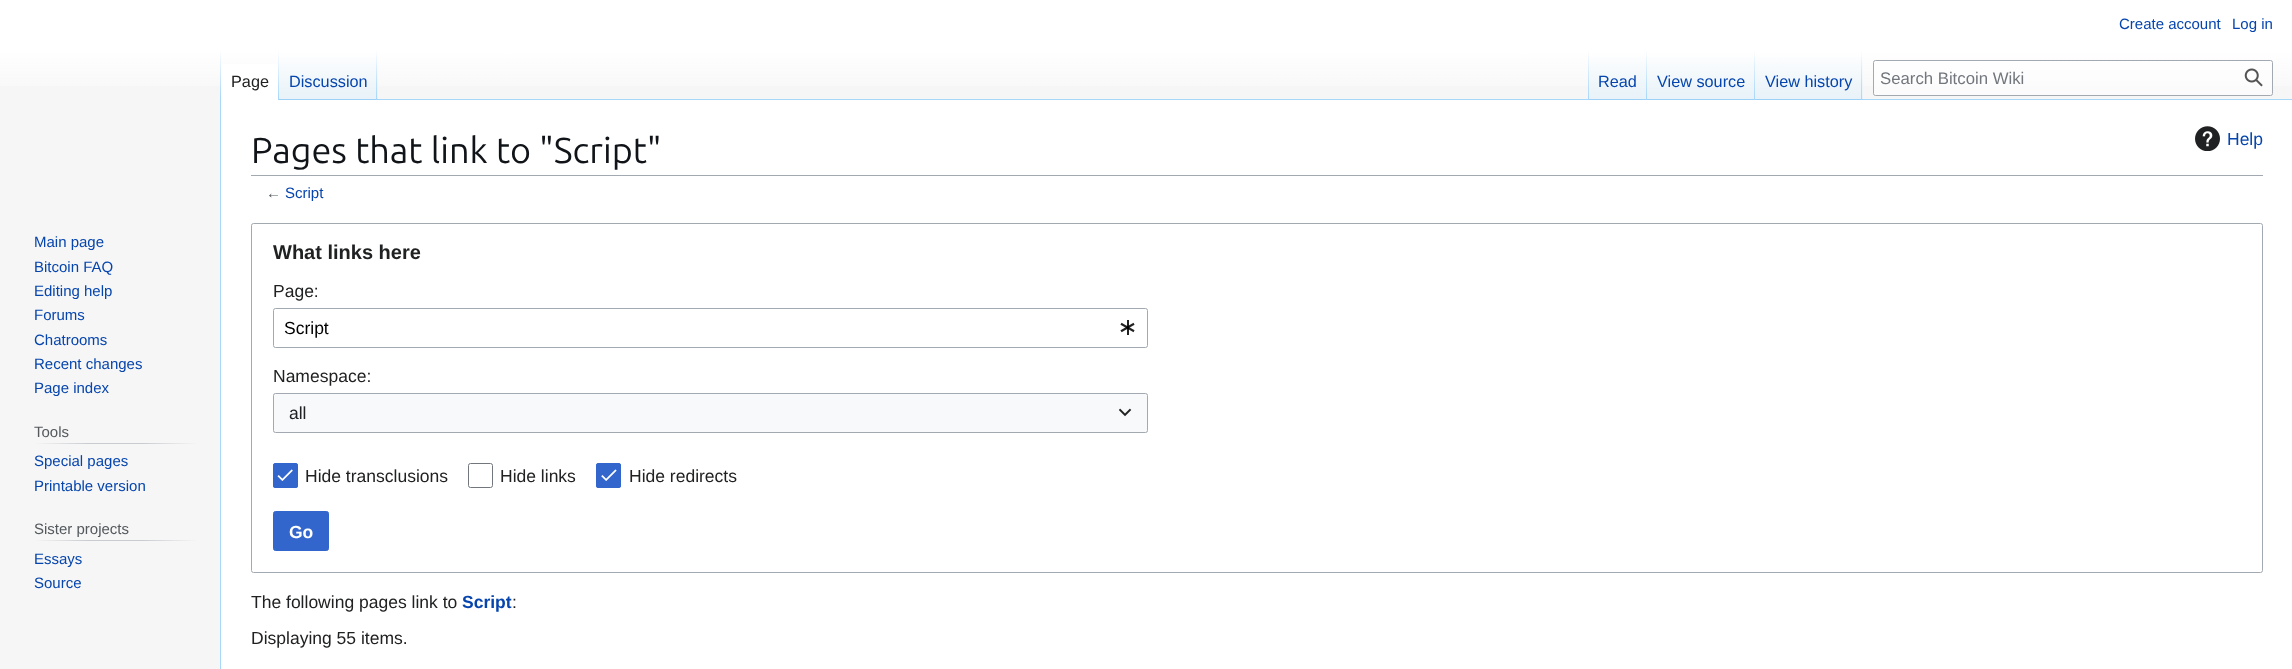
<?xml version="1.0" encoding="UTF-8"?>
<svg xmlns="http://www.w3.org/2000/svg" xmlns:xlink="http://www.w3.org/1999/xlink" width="2292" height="669">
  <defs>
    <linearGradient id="g1" gradientUnits="userSpaceOnUse" x1="1146" y1="0" x2="1146" y2="100"><stop offset="0.5" stop-color="#ffffff" /><stop offset="1" stop-color="#f6f6f6" /></linearGradient>
    <linearGradient id="g2" gradientUnits="userSpaceOnUse" x1="221" y1="50" x2="221" y2="100"><stop offset="0" stop-color="#a7d7f9" stop-opacity="0" /><stop offset="1" stop-color="#a7d7f9" /></linearGradient>
    <linearGradient id="g3" gradientUnits="userSpaceOnUse" x1="278" y1="50" x2="278" y2="100"><stop offset="0" stop-color="#ffffff" /><stop offset="1" stop-color="#a7d7f9" /></linearGradient>
    <linearGradient id="g4" gradientUnits="userSpaceOnUse" x1="328" y1="100" x2="328" y2="50"><stop offset="0" stop-color="#77c1f6" /><stop offset="0.03" stop-color="#e8f2f8" /><stop offset="1" stop-color="#ffffff" /></linearGradient>
    <linearGradient id="g5" gradientUnits="userSpaceOnUse" x1="377" y1="50" x2="377" y2="100"><stop offset="0" stop-color="#a7d7f9" stop-opacity="0" /><stop offset="1" stop-color="#a7d7f9" /></linearGradient>
    <linearGradient id="g6" gradientUnits="userSpaceOnUse" x1="1588" y1="50" x2="1588" y2="100"><stop offset="0" stop-color="#a7d7f9" stop-opacity="0" /><stop offset="1" stop-color="#a7d7f9" /></linearGradient>
    <linearGradient id="g7" gradientUnits="userSpaceOnUse" x1="1618" y1="100" x2="1618" y2="50"><stop offset="0" stop-color="#77c1f6" /><stop offset="0.03" stop-color="#e8f2f8" /><stop offset="1" stop-color="#ffffff" /></linearGradient>
    <linearGradient id="g8" gradientUnits="userSpaceOnUse" x1="1647" y1="50" x2="1647" y2="100"><stop offset="0" stop-color="#a7d7f9" stop-opacity="0" /><stop offset="1" stop-color="#a7d7f9" /></linearGradient>
    <linearGradient id="g9" gradientUnits="userSpaceOnUse" x1="1701" y1="100" x2="1701" y2="50"><stop offset="0" stop-color="#77c1f6" /><stop offset="0.03" stop-color="#e8f2f8" /><stop offset="1" stop-color="#ffffff" /></linearGradient>
    <linearGradient id="g10" gradientUnits="userSpaceOnUse" x1="1754" y1="50" x2="1754" y2="100"><stop offset="0" stop-color="#a7d7f9" stop-opacity="0" /><stop offset="1" stop-color="#a7d7f9" /></linearGradient>
    <linearGradient id="g11" gradientUnits="userSpaceOnUse" x1="1809" y1="100" x2="1809" y2="50"><stop offset="0" stop-color="#77c1f6" /><stop offset="0.03" stop-color="#e8f2f8" /><stop offset="1" stop-color="#ffffff" /></linearGradient>
    <linearGradient id="g12" gradientUnits="userSpaceOnUse" x1="1862" y1="50" x2="1862" y2="100"><stop offset="0" stop-color="#a7d7f9" stop-opacity="0" /><stop offset="1" stop-color="#a7d7f9" /></linearGradient>
    <linearGradient id="g13" gradientUnits="userSpaceOnUse" x1="34" y1="443" x2="198" y2="443"><stop offset="0" stop-color="#f6f6f6" /><stop offset="0.33" stop-color="#c8ccd1" /><stop offset="0.66" stop-color="#c8ccd1" /><stop offset="1" stop-color="#f6f6f6" /></linearGradient>
    <linearGradient id="g14" gradientUnits="userSpaceOnUse" x1="34" y1="541" x2="198" y2="541"><stop offset="0" stop-color="#f6f6f6" /><stop offset="0.33" stop-color="#c8ccd1" /><stop offset="0.66" stop-color="#c8ccd1" /><stop offset="1" stop-color="#f6f6f6" /></linearGradient>
  </defs>
  <rect width="100%" height="100%" fill="#f6f6f6" />
  <rect width="2292" height="86" fill="url(#g1)" />
  <rect x="220" y="99" width="1" height="570" fill="#a7d7f9" />
  <rect x="220" y="50" width="1" height="50" fill="url(#g2)" />
  <rect x="221" y="64" width="57" height="36" fill="#ffffff" />
  <rect x="278" y="50" width="1" height="50" fill="url(#g3)" />
  <rect x="279" y="57" width="99" height="43" fill="url(#g4)" />
  <rect x="376" y="50" width="1" height="50" fill="url(#g5)" />
  <rect x="378" y="99" width="1914" height="1" fill="#a7d7f9" />
  <rect x="1588" y="50" width="1" height="50" fill="url(#g6)" />
  <rect x="1589" y="57" width="59" height="43" fill="url(#g7)" />
  <rect x="1646" y="50" width="1" height="50" fill="url(#g8)" />
  <rect x="1648" y="57" width="107" height="43" fill="url(#g9)" />
  <rect x="1754" y="50" width="1" height="50" fill="url(#g10)" />
  <rect x="1755" y="57" width="108" height="43" fill="url(#g11)" />
  <rect x="1861" y="50" width="1" height="50" fill="url(#g12)" />
  <rect x="1873.5" y="60.5" width="399" height="35" rx="2" fill="#ffffff" fill-opacity="0.5" stroke="#a2a9b1" />
  <image x="2244" y="68" width="19" height="19" xlink:href="image1.png" />
  <rect x="34" y="443" width="164" height="1" fill="url(#g13)" />
  <rect x="34" y="540" width="164" height="1" fill="url(#g14)" />
  <rect x="221" y="100" width="2071" height="569" fill="#ffffff" />
  <rect x="251" y="175" width="2012" height="1" fill="#a2a9b1" />
  <image x="2195" y="126" width="25" height="25" xlink:href="image2.png" />
  <rect x="251.5" y="223.5" width="2011" height="349" rx="2" fill="none" stroke="#a2a9b1" />
  <rect x="273.5" y="308.5" width="874" height="39" rx="2" fill="none" stroke="#a2a9b1" />
  <image x="1120" y="320" width="15" height="15" xlink:href="image3.png" />
  <rect x="273" y="393" width="875" height="40" fill="#f8f9fa" />
  <rect x="273.5" y="393.5" width="874" height="39" rx="2" fill="none" stroke="#a2a9b1" />
  <image x="1119" y="408" width="13" height="9" xlink:href="image4.png" />
  <rect x="273" y="463" width="25" height="25" rx="2.5" fill="#3366cc" />
  <image x="277" y="469" width="16" height="12" xlink:href="image5.png" />
  <rect x="273.5" y="463.5" width="24" height="24" rx="2" fill="none" stroke="#3366cc" />
  <rect x="468.5" y="463.5" width="24" height="24" rx="2" fill="none" stroke="#72777d" />
  <rect x="596" y="463" width="25" height="25" rx="2.5" fill="#3366cc" />
  <image x="601" y="469" width="16" height="12" xlink:href="image6.png" />
  <rect x="596.5" y="463.5" width="24" height="24" rx="2" fill="none" stroke="#3366cc" />
  <rect x="273.5" y="511.5" width="55" height="39" rx="2" fill="#3366cc" stroke="#3366cc" />
  <text x="2119" y="29" style="font-family: Liberation Sans; font-size: 15px; fill: #0645ad">Create account</text>
  <text x="2232" y="29" style="font-family: Liberation Sans; font-size: 15px; fill: #0645ad">Log in</text>
  <text x="231" y="87" style="font-family: Liberation Sans; font-size: 16.25px; fill: #202122">Page</text>
  <text x="289" y="87" style="font-family: Liberation Sans; font-size: 16.25px; fill: #0645ad">Discussion</text>
  <text x="1598" y="87" style="font-family: Liberation Sans; font-size: 16.25px; fill: #0645ad">Read</text>
  <text x="1657" y="87" style="font-family: Liberation Sans; font-size: 16.25px; fill: #0645ad">View source</text>
  <text x="1765" y="87" style="font-family: Liberation Sans; font-size: 16.25px; fill: #0645ad">View history</text>
  <text x="1880" y="84" style="font-family: Liberation Sans; font-size: 16.75px; fill: #72777d">Search Bitcoin Wiki</text>
  <text x="34" y="247" style="font-family: Liberation Sans; font-size: 15px; fill: #0645ad">Main page</text>
  <text x="34" y="272" style="font-family: Liberation Sans; font-size: 15px; fill: #0645ad">Bitcoin FAQ</text>
  <text x="34" y="296" style="font-family: Liberation Sans; font-size: 15px; fill: #0645ad">Editing help</text>
  <text x="34" y="320" style="font-family: Liberation Sans; font-size: 15px; fill: #0645ad">Forums</text>
  <text x="34" y="345" style="font-family: Liberation Sans; font-size: 15px; fill: #0645ad">Chatrooms</text>
  <text x="34" y="369" style="font-family: Liberation Sans; font-size: 15px; fill: #0645ad">Recent changes</text>
  <text x="34" y="393" style="font-family: Liberation Sans; font-size: 15px; fill: #0645ad">Page index</text>
  <text x="34" y="437" style="font-family: Liberation Sans; font-size: 15px; fill: #54595d">Tools</text>
  <text x="34" y="466" style="font-family: Liberation Sans; font-size: 15px; fill: #0645ad">Special pages</text>
  <text x="34" y="491" style="font-family: Liberation Sans; font-size: 15px; fill: #0645ad">Printable version</text>
  <text x="34" y="534" style="font-family: Liberation Sans; font-size: 15px; fill: #54595d">Sister projects</text>
  <text x="34" y="564" style="font-family: Liberation Sans; font-size: 15px; fill: #0645ad">Essays</text>
  <text x="34" y="588" style="font-family: Liberation Sans; font-size: 15px; fill: #0645ad">Source</text>
  <text x="251" y="163" style="font-family: Ubuntu; font-size: 36px; fill: #101418">Pages that link to "Script"</text>
  <text x="2227" y="145" style="font-family: Liberation Sans; font-size: 17.5px; fill: #0645ad">Help</text>
  <text x="266" y="198" style="font-family: Liberation Sans; font-size: 15px; fill: #54595d">←</text>
  <text x="285" y="198" style="font-family: Liberation Sans; font-size: 15px; fill: #0645ad">Script</text>
  <text x="273" y="259" style="font-family: Liberation Sans; font-size: 20px; font-weight: bold; fill: #202122">What links here</text>
  <text x="273" y="297" style="font-family: Liberation Sans; font-size: 17.5px; fill: #202122">Page:</text>
  <text x="284" y="334" style="font-family: Liberation Sans; font-size: 17.5px; fill: #000000">Script</text>
  <text x="273" y="382" style="font-family: Liberation Sans; font-size: 17.5px; fill: #202122">Namespace:</text>
  <text x="289" y="419" style="font-family: Liberation Sans; font-size: 17.5px; fill: #202122">all</text>
  <text x="305" y="482" style="font-family: Liberation Sans; font-size: 17.5px; fill: #202122">Hide transclusions</text>
  <text x="500" y="482" style="font-family: Liberation Sans; font-size: 17.5px; fill: #202122">Hide links</text>
  <text x="629" y="482" style="font-family: Liberation Sans; font-size: 17.5px; fill: #202122">Hide redirects</text>
  <text x="289" y="538" style="font-family: Liberation Sans; font-size: 17.5px; font-weight: bold; fill: #ffffff">Go</text>
  <text x="251" y="608" style="font-family: Liberation Sans; font-size: 17.5px; fill: #202122">The following pages link to</text>
  <text x="462" y="608" style="font-family: Liberation Sans; font-size: 17.5px; font-weight: bold; fill: #0645ad">Script</text>
  <text x="512" y="608" style="font-family: Liberation Sans; font-size: 17.5px; fill: #202122">:</text>
  <text x="251" y="644" style="font-family: Liberation Sans; font-size: 17.5px; fill: #202122">Displaying 55 items.</text>
</svg>
